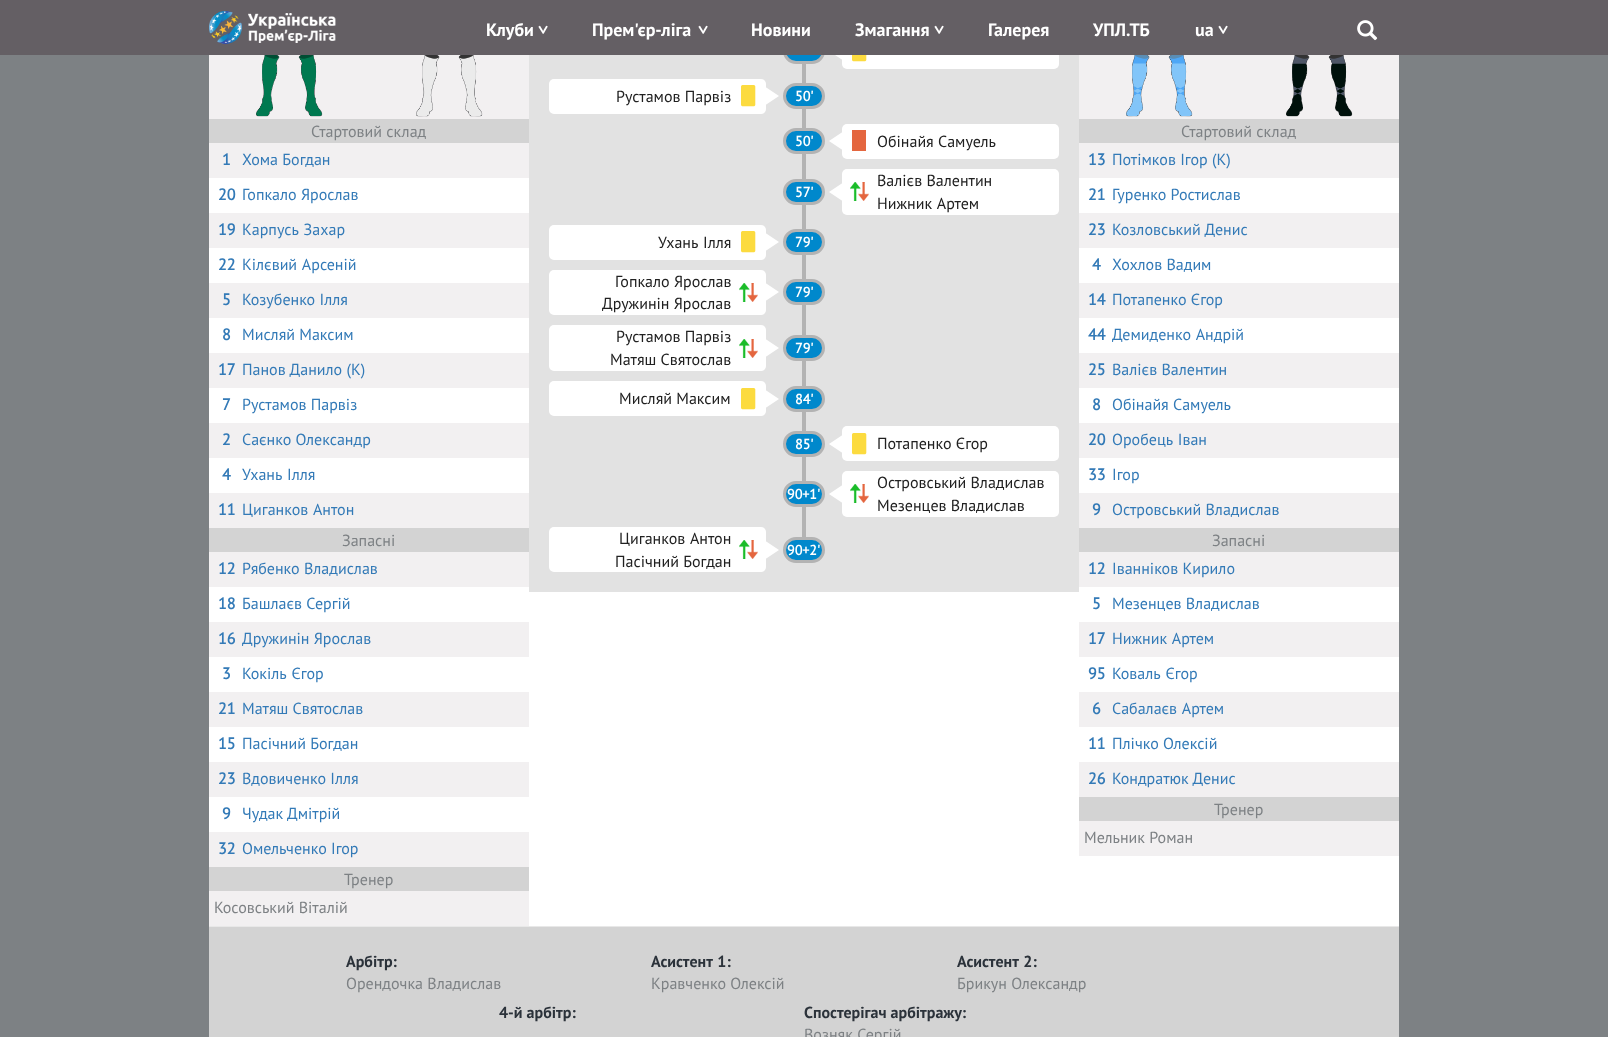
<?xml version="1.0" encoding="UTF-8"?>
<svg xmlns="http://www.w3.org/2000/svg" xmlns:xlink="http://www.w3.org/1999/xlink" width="1608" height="1037">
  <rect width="100%" height="100%" fill="#7d8184" />
  <rect x="209" y="178" width="1190" height="748" fill="#ffffff" />
  <rect x="529" y="55" width="550" height="537" fill="#e2e2e2" />
  <rect x="784.5" y="39.5" width="39" height="23" rx="11.5" fill="#0088cc" stroke="#b3b3b3" stroke-width="3" />
  <rect x="842" y="34" width="217" height="35" rx="5" fill="#ffffff" />
  <path d="M 844 41 v 20 l -15 -10 z" fill="#ffffff" />
  <rect width="1608" height="55" fill="#645f64" />
  <image x="209" y="11" width="127" height="33" xlink:href="image1.png" />
  <image x="1357" y="20" width="21" height="21" xlink:href="image2.png" />
  <rect x="209" y="55" width="320" height="64" fill="#f2f0f1" />
  <image x="256" y="55" width="67" height="62" xlink:href="image3.png" />
  <image x="416" y="55" width="67" height="62" xlink:href="image4.png" />
  <rect x="209" y="119" width="320" height="24" fill="#d3d3d3" />
  <rect x="209" y="143" width="320" height="35" fill="#f2f0f1" />
  <rect x="209" y="213" width="320" height="35" fill="#f2f0f1" />
  <rect x="209" y="283" width="320" height="35" fill="#f2f0f1" />
  <rect x="209" y="353" width="320" height="35" fill="#f2f0f1" />
  <rect x="209" y="423" width="320" height="35" fill="#f2f0f1" />
  <rect x="209" y="493" width="320" height="35" fill="#f2f0f1" />
  <rect x="209" y="528" width="320" height="24" fill="#d3d3d3" />
  <rect x="209" y="552" width="320" height="35" fill="#f2f0f1" />
  <rect x="209" y="622" width="320" height="35" fill="#f2f0f1" />
  <rect x="209" y="692" width="320" height="35" fill="#f2f0f1" />
  <rect x="209" y="762" width="320" height="35" fill="#f2f0f1" />
  <rect x="209" y="832" width="320" height="35" fill="#f2f0f1" />
  <rect x="209" y="867" width="320" height="24" fill="#d3d3d3" />
  <rect x="209" y="891" width="320" height="35" fill="#f2f0f1" />
  <rect x="549" y="79" width="217" height="35" rx="5" fill="#ffffff" />
  <image x="741" y="85" width="15" height="22" xlink:href="image5.png" />
  <path d="M 764 106 v -20 l 15 10 z" fill="#ffffff" />
  <rect x="802" y="64" width="4" height="473" fill="#b3b3b3" />
  <rect x="784.5" y="84.5" width="39" height="23" rx="11.5" fill="#0088cc" stroke="#b3b3b3" stroke-width="3" />
  <image x="852" y="55" width="15" height="7" xlink:href="image6.png" />
  <rect x="784.5" y="129.5" width="39" height="23" rx="11.5" fill="#0088cc" stroke="#b3b3b3" stroke-width="3" />
  <rect x="842" y="124" width="217" height="35" rx="5" fill="#ffffff" />
  <path d="M 844 131 v 20 l -15 -10 z" fill="#ffffff" />
  <rect x="852" y="130" width="14" height="21" fill="#e4663f" />
  <rect x="784.5" y="180.5" width="39" height="23" rx="11.5" fill="#0088cc" stroke="#b3b3b3" stroke-width="3" />
  <rect x="842" y="169" width="217" height="46" rx="5" fill="#ffffff" />
  <path d="M 844 182 v 20 l -15 -10 z" fill="#ffffff" />
  <image x="850" y="182" width="19" height="19" xlink:href="image7.png" />
  <rect x="549" y="225" width="217" height="35" rx="5" fill="#ffffff" />
  <image x="741" y="231" width="15" height="22" xlink:href="image5.png" />
  <path d="M 764 252 v -20 l 15 10 z" fill="#ffffff" />
  <rect x="784.5" y="230.5" width="39" height="23" rx="11.5" fill="#0088cc" stroke="#b3b3b3" stroke-width="3" />
  <rect x="549" y="270" width="217" height="45" rx="5" fill="#ffffff" />
  <image x="739" y="283" width="19" height="19" xlink:href="image7.png" />
  <path d="M 764 302 v -20 l 15 10 z" fill="#ffffff" />
  <rect x="784.5" y="280.5" width="39" height="23" rx="11.5" fill="#0088cc" stroke="#b3b3b3" stroke-width="3" />
  <rect x="549" y="325" width="217" height="46" rx="5" fill="#ffffff" />
  <image x="739" y="339" width="19" height="19" xlink:href="image7.png" />
  <path d="M 764 358 v -20 l 15 10 z" fill="#ffffff" />
  <rect x="784.5" y="336.5" width="39" height="23" rx="11.5" fill="#0088cc" stroke="#b3b3b3" stroke-width="3" />
  <rect x="549" y="381" width="217" height="35" rx="5" fill="#ffffff" />
  <image x="741" y="388" width="15" height="22" xlink:href="image5.png" />
  <path d="M 764 409 v -20 l 15 10 z" fill="#ffffff" />
  <rect x="784.5" y="387.5" width="39" height="23" rx="11.5" fill="#0088cc" stroke="#b3b3b3" stroke-width="3" />
  <rect x="784.5" y="432.5" width="39" height="23" rx="11.5" fill="#0088cc" stroke="#b3b3b3" stroke-width="3" />
  <rect x="842" y="426" width="217" height="35" rx="5" fill="#ffffff" />
  <path d="M 844 434 v 20 l -15 -10 z" fill="#ffffff" />
  <image x="852" y="433" width="15" height="22" xlink:href="image5.png" />
  <rect x="784.5" y="482.5" width="39" height="23" rx="11.5" fill="#0088cc" stroke="#b3b3b3" stroke-width="3" />
  <rect x="842" y="471" width="217" height="46" rx="5" fill="#ffffff" />
  <path d="M 844 484 v 20 l -15 -10 z" fill="#ffffff" />
  <image x="850" y="484" width="19" height="19" xlink:href="image7.png" />
  <rect x="549" y="527" width="217" height="45" rx="5" fill="#ffffff" />
  <image x="739" y="540" width="19" height="19" xlink:href="image7.png" />
  <path d="M 764 560 v -20 l 15 10 z" fill="#ffffff" />
  <rect x="784.5" y="538.5" width="39" height="23" rx="11.5" fill="#0088cc" stroke="#b3b3b3" stroke-width="3" />
  <rect x="1079" y="55" width="320" height="64" fill="#f2f0f1" />
  <image x="1126" y="55" width="67" height="62" xlink:href="image8.png" />
  <image x="1286" y="55" width="67" height="62" xlink:href="image9.png" />
  <rect x="1079" y="119" width="320" height="24" fill="#d3d3d3" />
  <rect x="1079" y="143" width="320" height="35" fill="#f2f0f1" />
  <rect x="1079" y="213" width="320" height="35" fill="#f2f0f1" />
  <rect x="1079" y="283" width="320" height="35" fill="#f2f0f1" />
  <rect x="1079" y="353" width="320" height="35" fill="#f2f0f1" />
  <rect x="1079" y="423" width="320" height="35" fill="#f2f0f1" />
  <rect x="1079" y="493" width="320" height="35" fill="#f2f0f1" />
  <rect x="1079" y="528" width="320" height="24" fill="#d3d3d3" />
  <rect x="1079" y="552" width="320" height="35" fill="#f2f0f1" />
  <rect x="1079" y="622" width="320" height="35" fill="#f2f0f1" />
  <rect x="1079" y="692" width="320" height="35" fill="#f2f0f1" />
  <rect x="1079" y="762" width="320" height="35" fill="#f2f0f1" />
  <rect x="1079" y="797" width="320" height="24" fill="#d3d3d3" />
  <rect x="1079" y="821" width="320" height="35" fill="#f2f0f1" />
  <rect x="209" y="927" width="1190" height="110" fill="#d3d3d3" />
  <rect x="209" y="926" width="1190" height="1" fill="#e8e8e8" />
  <text x="486" y="36" style="font-family: 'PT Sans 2'; font-size: 18px; font-weight: bold; fill: #ffffff">Клуби</text>
  <text x="537" y="25" transform="rotate(90 537 25)" style="font-family: PT Sans; font-size: 18px; font-weight: bold; fill: #ffffff">&gt;</text>
  <text x="592" y="36" style="font-family: 'PT Sans 2'; font-size: 18px; font-weight: bold; fill: #ffffff">Прем'єр-ліга</text>
  <text x="697" y="25" transform="rotate(90 697 25)" style="font-family: PT Sans; font-size: 18px; font-weight: bold; fill: #ffffff">&gt;</text>
  <text x="751" y="36" style="font-family: 'PT Sans 2'; font-size: 18px; font-weight: bold; fill: #ffffff">Новини</text>
  <text x="855" y="36" style="font-family: 'PT Sans 2'; font-size: 18px; font-weight: bold; fill: #ffffff">Змагання</text>
  <text x="933" y="25" transform="rotate(90 933 25)" style="font-family: PT Sans; font-size: 18px; font-weight: bold; fill: #ffffff">&gt;</text>
  <text x="988" y="36" style="font-family: 'PT Sans 2'; font-size: 18px; font-weight: bold; fill: #ffffff">Галерея</text>
  <text x="1093" y="36" style="font-family: 'PT Sans 2'; font-size: 18px; font-weight: bold; fill: #ffffff">УПЛ.ТБ</text>
  <text x="1195" y="36" style="font-family: 'PT Sans 2'; font-size: 18px; font-weight: bold; fill: #ffffff">ua</text>
  <text x="1217" y="25" transform="rotate(90 1217 25)" style="font-family: PT Sans; font-size: 18px; font-weight: bold; fill: #ffffff">&gt;</text>
  <text x="311" y="137" style="font-family: PT Sans; font-size: 16px; fill: #7d8184">Стартовий склад</text>
  <text x="222" y="165" style="font-family: PT Sans; font-size: 16px; font-weight: bold; fill: #337ab7">1</text>
  <text x="242" y="165" style="font-family: PT Sans; font-size: 16px; fill: #337ab7">Хома Богдан</text>
  <text x="218" y="200" style="font-family: PT Sans; font-size: 16px; font-weight: bold; fill: #337ab7">20</text>
  <text x="242" y="200" style="font-family: PT Sans; font-size: 16px; fill: #337ab7">Гопкало Ярослав</text>
  <text x="218" y="235" style="font-family: PT Sans; font-size: 16px; font-weight: bold; fill: #337ab7">19</text>
  <text x="242" y="235" word-spacing="1" style="font-family: PT Sans; font-size: 16px; fill: #337ab7">Карпусь Захар</text>
  <text x="218" y="270" style="font-family: PT Sans; font-size: 16px; font-weight: bold; fill: #337ab7">22</text>
  <text x="242" y="270" word-spacing="1" style="font-family: PT Sans; font-size: 16px; fill: #337ab7">Кілєвий Арсеній</text>
  <text x="222" y="305" style="font-family: PT Sans; font-size: 16px; font-weight: bold; fill: #337ab7">5</text>
  <text x="242" y="305" style="font-family: PT Sans; font-size: 16px; fill: #337ab7">Козубенко Ілля</text>
  <text x="222" y="340" style="font-family: PT Sans; font-size: 16px; font-weight: bold; fill: #337ab7">8</text>
  <text x="242" y="340" style="font-family: PT Sans; font-size: 16px; fill: #337ab7">Мисляй Максим</text>
  <text x="218" y="375" style="font-family: PT Sans; font-size: 16px; font-weight: bold; fill: #337ab7">17</text>
  <text x="242" y="375" style="font-family: PT Sans; font-size: 16px; fill: #337ab7">Панов Данило (К)</text>
  <text x="222" y="410" style="font-family: PT Sans; font-size: 16px; font-weight: bold; fill: #337ab7">7</text>
  <text x="242" y="410" style="font-family: PT Sans; font-size: 16px; fill: #337ab7">Рустамов Парвіз</text>
  <text x="222" y="445" style="font-family: PT Sans; font-size: 16px; font-weight: bold; fill: #337ab7">2</text>
  <text x="242" y="445" style="font-family: PT Sans; font-size: 16px; fill: #337ab7">Саєнко Олександр</text>
  <text x="222" y="480" style="font-family: PT Sans; font-size: 16px; font-weight: bold; fill: #337ab7">4</text>
  <text x="242" y="480" word-spacing="1" style="font-family: PT Sans; font-size: 16px; fill: #337ab7">Ухань Ілля</text>
  <text x="218" y="515" style="font-family: PT Sans; font-size: 16px; font-weight: bold; fill: #337ab7">11</text>
  <text x="242" y="515" word-spacing="1" style="font-family: PT Sans; font-size: 16px; fill: #337ab7">Циганков Антон</text>
  <text x="342" y="546" style="font-family: PT Sans; font-size: 16px; fill: #7d8184">Запасні</text>
  <text x="218" y="574" style="font-family: PT Sans; font-size: 16px; font-weight: bold; fill: #337ab7">12</text>
  <text x="242" y="574" style="font-family: PT Sans; font-size: 16px; fill: #337ab7">Рябенко Владислав</text>
  <text x="218" y="609" style="font-family: PT Sans; font-size: 16px; font-weight: bold; fill: #337ab7">18</text>
  <text x="242" y="609" style="font-family: PT Sans; font-size: 16px; fill: #337ab7">Башлаєв Сергій</text>
  <text x="218" y="644" style="font-family: PT Sans; font-size: 16px; font-weight: bold; fill: #337ab7">16</text>
  <text x="242" y="644" style="font-family: PT Sans; font-size: 16px; fill: #337ab7">Дружинін Ярослав</text>
  <text x="222" y="679" style="font-family: PT Sans; font-size: 16px; font-weight: bold; fill: #337ab7">3</text>
  <text x="242" y="679" word-spacing="1" style="font-family: PT Sans; font-size: 16px; fill: #337ab7">Кокіль Єгор</text>
  <text x="218" y="714" style="font-family: PT Sans; font-size: 16px; font-weight: bold; fill: #337ab7">21</text>
  <text x="242" y="714" style="font-family: PT Sans; font-size: 16px; fill: #337ab7">Матяш Святослав</text>
  <text x="218" y="749" style="font-family: PT Sans; font-size: 16px; font-weight: bold; fill: #337ab7">15</text>
  <text x="242" y="749" style="font-family: PT Sans; font-size: 16px; fill: #337ab7">Пасічний Богдан</text>
  <text x="218" y="784" style="font-family: PT Sans; font-size: 16px; font-weight: bold; fill: #337ab7">23</text>
  <text x="242" y="784" style="font-family: PT Sans; font-size: 16px; fill: #337ab7">Вдовиченко Ілля</text>
  <text x="222" y="819" style="font-family: PT Sans; font-size: 16px; font-weight: bold; fill: #337ab7">9</text>
  <text x="242" y="819" style="font-family: PT Sans; font-size: 16px; fill: #337ab7">Чудак Дмітрій</text>
  <text x="218" y="854" style="font-family: PT Sans; font-size: 16px; font-weight: bold; fill: #337ab7">32</text>
  <text x="242" y="854" style="font-family: PT Sans; font-size: 16px; fill: #337ab7">Омельченко Ігор</text>
  <text x="344" y="885" style="font-family: PT Sans; font-size: 16px; fill: #7d8184">Тренер</text>
  <text x="214" y="913" style="font-family: PT Sans; font-size: 16px; fill: #7d8184">Косовський Віталій</text>
  <text x="616" y="102" style="font-family: PT Sans; font-size: 16px; fill: #212121">Рустамов Парвіз</text>
  <text x="795" y="101" style="font-family: PT Sans; font-size: 14px; font-weight: bold; fill: #ffffff">50'</text>
  <text x="795" y="146" style="font-family: PT Sans; font-size: 14px; font-weight: bold; fill: #ffffff">50'</text>
  <text x="877" y="147" style="font-family: PT Sans; font-size: 16px; fill: #212121">Обінайя Самуель</text>
  <text x="795" y="197" style="font-family: PT Sans; font-size: 14px; font-weight: bold; fill: #ffffff">57'</text>
  <text x="877" y="186" style="font-family: PT Sans; font-size: 16px; fill: #212121">Валієв Валентин</text>
  <text x="877" y="209" word-spacing="1" style="font-family: PT Sans; font-size: 16px; fill: #212121">Нижник Артем</text>
  <text x="658" y="248" word-spacing="1" style="font-family: PT Sans; font-size: 16px; fill: #212121">Ухань Ілля</text>
  <text x="795" y="247" style="font-family: PT Sans; font-size: 14px; font-weight: bold; fill: #ffffff">79'</text>
  <text x="615" y="287" style="font-family: PT Sans; font-size: 16px; fill: #212121">Гопкало Ярослав</text>
  <text x="602" y="309" style="font-family: PT Sans; font-size: 16px; fill: #212121">Дружинін Ярослав</text>
  <text x="795" y="297" style="font-family: PT Sans; font-size: 14px; font-weight: bold; fill: #ffffff">79'</text>
  <text x="616" y="342" style="font-family: PT Sans; font-size: 16px; fill: #212121">Рустамов Парвіз</text>
  <text x="610" y="365" style="font-family: PT Sans; font-size: 16px; fill: #212121">Матяш Святослав</text>
  <text x="795" y="353" style="font-family: PT Sans; font-size: 14px; font-weight: bold; fill: #ffffff">79'</text>
  <text x="619" y="404" style="font-family: PT Sans; font-size: 16px; fill: #212121">Мисляй Максим</text>
  <text x="795" y="404" style="font-family: PT Sans; font-size: 14px; font-weight: bold; fill: #ffffff">84'</text>
  <text x="795" y="449" style="font-family: PT Sans; font-size: 14px; font-weight: bold; fill: #ffffff">85'</text>
  <text x="877" y="449" style="font-family: PT Sans; font-size: 16px; fill: #212121">Потапенко Єгор</text>
  <text x="787" y="499" style="font-family: PT Sans; font-size: 14px; font-weight: bold; fill: #ffffff">90+1'</text>
  <text x="877" y="488" style="font-family: PT Sans; font-size: 16px; fill: #212121">Островський Владислав</text>
  <text x="877" y="511" style="font-family: PT Sans; font-size: 16px; fill: #212121">Мезенцев Владислав</text>
  <text x="619" y="544" word-spacing="1" style="font-family: PT Sans; font-size: 16px; fill: #212121">Циганков Антон</text>
  <text x="615" y="567" style="font-family: PT Sans; font-size: 16px; fill: #212121">Пасічний Богдан</text>
  <text x="787" y="555" style="font-family: PT Sans; font-size: 14px; font-weight: bold; fill: #ffffff">90+2'</text>
  <text x="1181" y="137" style="font-family: PT Sans; font-size: 16px; fill: #7d8184">Стартовий склад</text>
  <text x="1088" y="165" style="font-family: PT Sans; font-size: 16px; font-weight: bold; fill: #337ab7">13</text>
  <text x="1112" y="165" style="font-family: PT Sans; font-size: 16px; fill: #337ab7">Потімков Ігор (К)</text>
  <text x="1088" y="200" style="font-family: PT Sans; font-size: 16px; font-weight: bold; fill: #337ab7">21</text>
  <text x="1112" y="200" style="font-family: PT Sans; font-size: 16px; fill: #337ab7">Гуренко Ростислав</text>
  <text x="1088" y="235" style="font-family: PT Sans; font-size: 16px; font-weight: bold; fill: #337ab7">23</text>
  <text x="1112" y="235" style="font-family: PT Sans; font-size: 16px; fill: #337ab7">Козловський Денис</text>
  <text x="1092" y="270" style="font-family: PT Sans; font-size: 16px; font-weight: bold; fill: #337ab7">4</text>
  <text x="1112" y="270" style="font-family: PT Sans; font-size: 16px; fill: #337ab7">Хохлов Вадим</text>
  <text x="1088" y="305" style="font-family: PT Sans; font-size: 16px; font-weight: bold; fill: #337ab7">14</text>
  <text x="1112" y="305" style="font-family: PT Sans; font-size: 16px; fill: #337ab7">Потапенко Єгор</text>
  <text x="1088" y="340" style="font-family: PT Sans; font-size: 16px; font-weight: bold; fill: #337ab7">44</text>
  <text x="1112" y="340" word-spacing="1" style="font-family: PT Sans; font-size: 16px; fill: #337ab7">Демиденко Андрій</text>
  <text x="1088" y="375" style="font-family: PT Sans; font-size: 16px; font-weight: bold; fill: #337ab7">25</text>
  <text x="1112" y="375" style="font-family: PT Sans; font-size: 16px; fill: #337ab7">Валієв Валентин</text>
  <text x="1092" y="410" style="font-family: PT Sans; font-size: 16px; font-weight: bold; fill: #337ab7">8</text>
  <text x="1112" y="410" style="font-family: PT Sans; font-size: 16px; fill: #337ab7">Обінайя Самуель</text>
  <text x="1088" y="445" style="font-family: PT Sans; font-size: 16px; font-weight: bold; fill: #337ab7">20</text>
  <text x="1112" y="445" word-spacing="1" style="font-family: PT Sans; font-size: 16px; fill: #337ab7">Оробець Іван</text>
  <text x="1088" y="480" style="font-family: PT Sans; font-size: 16px; font-weight: bold; fill: #337ab7">33</text>
  <text x="1112" y="480" style="font-family: PT Sans; font-size: 16px; fill: #337ab7">Ігор</text>
  <text x="1092" y="515" style="font-family: PT Sans; font-size: 16px; font-weight: bold; fill: #337ab7">9</text>
  <text x="1112" y="515" style="font-family: PT Sans; font-size: 16px; fill: #337ab7">Островський Владислав</text>
  <text x="1212" y="546" style="font-family: PT Sans; font-size: 16px; fill: #7d8184">Запасні</text>
  <text x="1088" y="574" style="font-family: PT Sans; font-size: 16px; font-weight: bold; fill: #337ab7">12</text>
  <text x="1112" y="574" style="font-family: PT Sans; font-size: 16px; fill: #337ab7">Іванніков Кирило</text>
  <text x="1092" y="609" style="font-family: PT Sans; font-size: 16px; font-weight: bold; fill: #337ab7">5</text>
  <text x="1112" y="609" style="font-family: PT Sans; font-size: 16px; fill: #337ab7">Мезенцев Владислав</text>
  <text x="1088" y="644" style="font-family: PT Sans; font-size: 16px; font-weight: bold; fill: #337ab7">17</text>
  <text x="1112" y="644" word-spacing="1" style="font-family: PT Sans; font-size: 16px; fill: #337ab7">Нижник Артем</text>
  <text x="1088" y="679" style="font-family: PT Sans; font-size: 16px; font-weight: bold; fill: #337ab7">95</text>
  <text x="1112" y="679" word-spacing="1" style="font-family: PT Sans; font-size: 16px; fill: #337ab7">Коваль Єгор</text>
  <text x="1092" y="714" style="font-family: PT Sans; font-size: 16px; font-weight: bold; fill: #337ab7">6</text>
  <text x="1112" y="714" word-spacing="1" style="font-family: PT Sans; font-size: 16px; fill: #337ab7">Сабалаєв Артем</text>
  <text x="1088" y="749" style="font-family: PT Sans; font-size: 16px; font-weight: bold; fill: #337ab7">11</text>
  <text x="1112" y="749" style="font-family: PT Sans; font-size: 16px; fill: #337ab7">Плічко Олексій</text>
  <text x="1088" y="784" style="font-family: PT Sans; font-size: 16px; font-weight: bold; fill: #337ab7">26</text>
  <text x="1112" y="784" style="font-family: PT Sans; font-size: 16px; fill: #337ab7">Кондратюк Денис</text>
  <text x="1214" y="815" style="font-family: PT Sans; font-size: 16px; fill: #7d8184">Тренер</text>
  <text x="1084" y="843" style="font-family: PT Sans; font-size: 16px; fill: #7d8184">Мельник Роман</text>
  <text x="346" y="967" style="font-family: 'PT Sans 2'; font-size: 16px; font-weight: bold; fill: #2b323a">Арбітр:</text>
  <text x="346" y="989" style="font-family: PT Sans; font-size: 16px; fill: #7d8184">Орендочка Владислав</text>
  <text x="651" y="967" word-spacing="1" style="font-family: 'PT Sans 2'; font-size: 16px; font-weight: bold; fill: #2b323a">Асистент 1:</text>
  <text x="651" y="989" style="font-family: PT Sans; font-size: 16px; fill: #7d8184">Кравченко Олексій</text>
  <text x="957" y="967" word-spacing="1" style="font-family: 'PT Sans 2'; font-size: 16px; font-weight: bold; fill: #2b323a">Асистент 2:</text>
  <text x="957" y="989" style="font-family: PT Sans; font-size: 16px; fill: #7d8184">Брикун Олександр</text>
  <text x="499" y="1018" style="font-family: 'PT Sans 2'; font-size: 16px; font-weight: bold; fill: #2b323a">4-й арбітр:</text>
  <text x="804" y="1018" style="font-family: 'PT Sans 2'; font-size: 16px; font-weight: bold; fill: #2b323a">Спостерігач арбітражу:</text>
  <text x="804" y="1040" style="font-family: PT Sans; font-size: 16px; fill: #7d8184">Возняк Сергій</text>
</svg>
